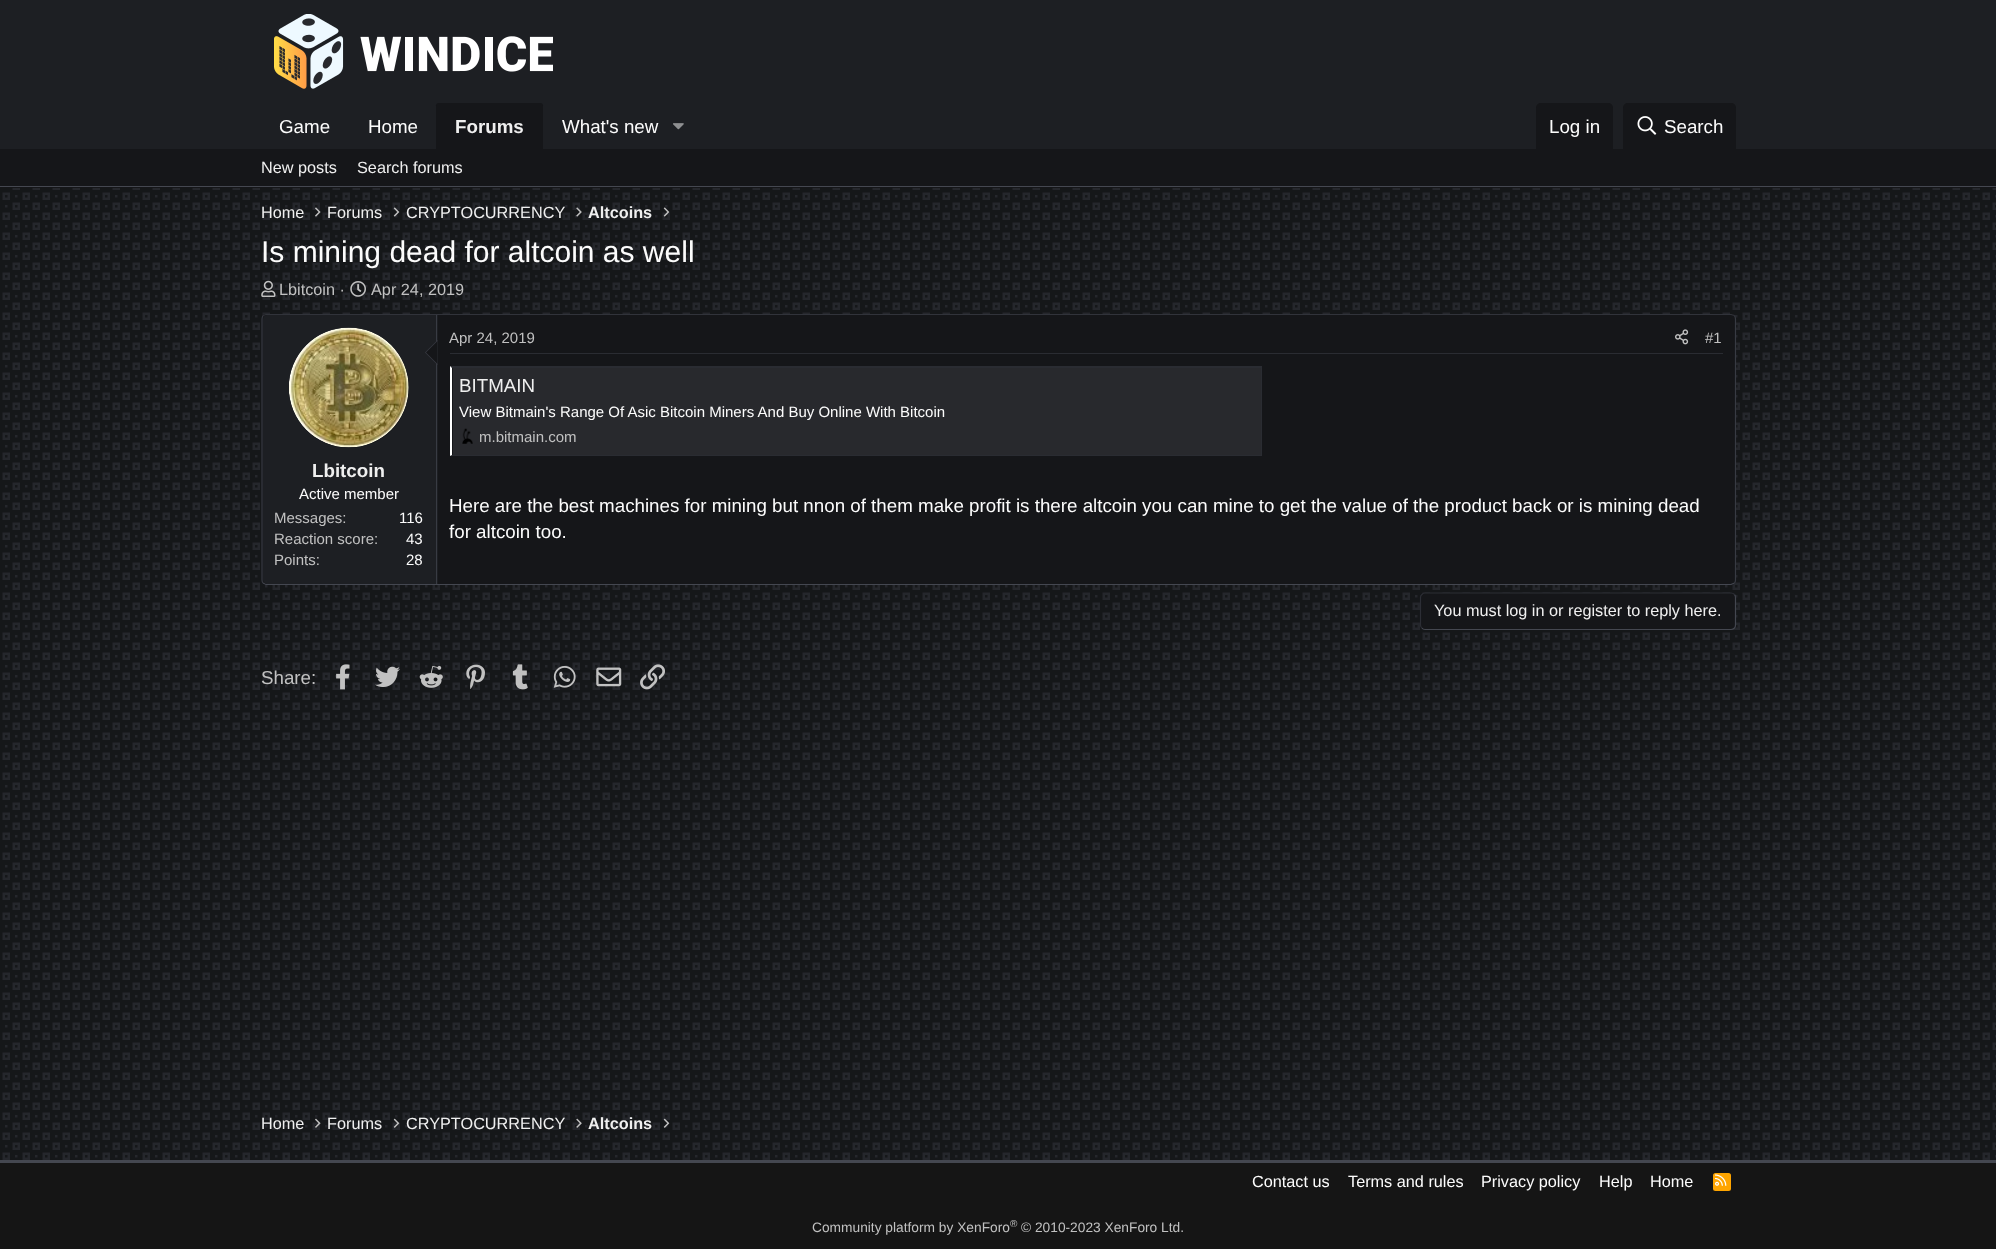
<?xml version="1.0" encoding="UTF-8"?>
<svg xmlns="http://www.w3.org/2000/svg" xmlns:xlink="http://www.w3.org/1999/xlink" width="1996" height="1249">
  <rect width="100%" height="100%" fill="#25272c" />
  <image x="0" y="188" width="1996" height="972" xlink:href="image1.png" />
  <rect width="1996" height="149" fill="#1d1f23" />
  <image x="274" y="14" width="279" height="75" xlink:href="image2.png" />
  <path d="M 438.5 103 h 102 c 1.5 0 2.5 1 2.5 2.5 v 43.5 h -107 v -43.5 c 0 -1.5 1 -2.5 2.5 -2.5 z" fill="#151619" />
  <image x="673" y="123" width="11" height="7" xlink:href="image3.png" />
  <path d="M 1541 103 h 67 c 3 0 5 2 5 5 v 41 h -77 v -41 c 0 -3 2 -5 5 -5 z" fill="#151619" />
  <path d="M 1628 103 h 103 c 3 0 5 2 5 5 v 41 h -113 v -41 c 0 -3 2 -5 5 -5 z" fill="#151619" />
  <image x="1637" y="116" width="20" height="19" xlink:href="image4.png" />
  <rect y="149" width="1996" height="39" fill="#151619" />
  <rect y="186" width="1996" height="1" fill="#444750" />
  <image x="315" y="207" width="6" height="10" xlink:href="image5.png" />
  <image x="393" y="207" width="7" height="10" xlink:href="image6.png" />
  <image x="576" y="207" width="6" height="10" xlink:href="image7.png" />
  <image x="663" y="207" width="7" height="10" xlink:href="image8.png" />
  <image x="261" y="280" width="15" height="17" xlink:href="image9.png" />
  <image x="350" y="281" width="16" height="16" xlink:href="image10.png" />
  <rect x="261" y="314" width="1475" height="271" rx="5" fill="#151619" />
  <path d="M 263 315.5 l 3 -1 h 1465 l 3.5 1" fill="none" stroke="#31333a" stroke-width="1.2" />
  <path d="M 1734.5 315.5 c 0.5 1 1 2 1 3.5 v 261 c 0 1 -0.5 2.5 -1 3" fill="none" stroke="#383b43" stroke-width="1.2" />
  <path d="M 1734.5 583 l -3.5 1.5 h -1465 l -3 -1.5" fill="none" stroke="#444750" stroke-width="1.2" />
  <path d="M 263 583 c -0.5 -0.5 -1 -2 -1 -3 v -261 c 0 -1.5 0.5 -2.5 1 -3.5" fill="none" stroke="#383b43" stroke-width="1.2" />
  <path d="M 267 315 h 171 v 269 h -171 c -2 0 -4 -2 -4 -4 v -261 c 0 -2 2 -4 4 -4 z" fill="#1d1f23" />
  <rect x="436" y="315" width="1" height="269" fill="#383b43" />
  <circle cx="349" cy="388" r="60" fill="#151619" />
  <image x="289" y="327" width="120" height="121" xlink:href="image11.png" />
  <path d="M 437.5 340 v 25 l -12.5 -12.5 z" fill="#383b43" />
  <path d="M 437.5 341 v 23 l -11.5 -11.5 z" fill="#151619" />
  <rect x="450" y="353" width="1273" height="1" fill="#2a2c32" />
  <image x="1675" y="329" width="14" height="16" xlink:href="image12.png" />
  <rect x="453" y="368" width="808" height="87" fill="#28292d" />
  <path d="M 450 366 h 812 l -1 2 h -809 z" fill="#2a2c32" />
  <rect x="1261" y="366" width="1" height="90" fill="#2a2c32" />
  <path d="M 1262 456 h -812 l 2 -1 h 809 z" fill="#2a2c32" />
  <path d="M 450 456 v -90 l 2 2 v 87 z" fill="#ffffff" />
  <image x="462" y="428" width="11" height="16" xlink:href="image13.png" />
  <rect x="1420" y="593" width="316" height="37" rx="5" fill="#151619" />
  <path d="M 1734.5 594.5 c 0.5 0.5 1 2 1 3 v 27.5 c 0 1 -0.5 2.5 -1 3 c -1 1 -2 1.5 -3.5 1.5 h -306 c -1 0 -2.5 -0.5 -3 -1.5" fill="none" stroke="#444750" stroke-width="1.2" />
  <path d="M 1422 628 c -1 -0.5 -1.5 -2 -1.5 -3 v -27.5 c 0 -1 0.5 -2.5 1.5 -3 c 0.5 -1 2 -1.5 3 -1.5 h 306 c 1.5 0 2.5 0.5 3.5 1.5" fill="none" stroke="#2c2e35" stroke-width="1.2" />
  <image x="336" y="664" width="14" height="26" xlink:href="image14.png" />
  <image x="375" y="666" width="25" height="21" xlink:href="image15.png" />
  <image x="419" y="665" width="24" height="23" xlink:href="image16.png" />
  <image x="466" y="664" width="19" height="25" xlink:href="image17.png" />
  <image x="512" y="664" width="16" height="26" xlink:href="image18.png" />
  <image x="553" y="665" width="23" height="23" xlink:href="image19.png" />
  <image x="596" y="667" width="26" height="20" xlink:href="image20.png" />
  <image x="640" y="664" width="25" height="26" xlink:href="image21.png" />
  <image x="315" y="1118" width="6" height="10" xlink:href="image22.png" />
  <image x="393" y="1118" width="7" height="10" xlink:href="image23.png" />
  <image x="576" y="1118" width="6" height="10" xlink:href="image24.png" />
  <image x="663" y="1118" width="7" height="10" xlink:href="image25.png" />
  <rect y="1163" width="1996" height="86" fill="#151515" />
  <rect y="1160" width="1996" height="3" fill="#444750" />
  <rect x="1713" y="1173" width="18" height="18" rx="2.5" fill="#ffa500" />
  <image x="1715" y="1174" width="12" height="12" xlink:href="image26.png" />
  <text x="279" y="133" style="font-family: Liberation Sans; font-size: 18.75px; fill: #fcfcfc">Game</text>
  <text x="368" y="133" style="font-family: Liberation Sans; font-size: 18.75px; fill: #fcfcfc">Home</text>
  <text x="455" y="133" style="font-family: Liberation Sans; font-size: 18.75px; font-weight: bold; fill: #efefef">Forums</text>
  <text x="562" y="133" style="font-family: Liberation Sans; font-size: 18.75px; fill: #fcfcfc">What's new</text>
  <text x="1549" y="133" style="font-family: Liberation Sans; font-size: 18.75px; fill: #fcfcfc">Log in</text>
  <text x="1664" y="133" style="font-family: Liberation Sans; font-size: 18.75px; fill: #fcfcfc">Search</text>
  <text x="261" y="173" style="font-family: Liberation Sans; font-size: 16.25px; fill: #efefef">New posts</text>
  <text x="357" y="173" style="font-family: Liberation Sans; font-size: 16.25px; fill: #efefef">Search forums</text>
  <text x="261" y="218" style="font-family: Liberation Sans; font-size: 16.25px; fill: #efefef">Home</text>
  <text x="327" y="218" style="font-family: Liberation Sans; font-size: 16.25px; fill: #efefef">Forums</text>
  <text x="406" y="218" style="font-family: Liberation Sans; font-size: 16.25px; fill: #efefef">CRYPTOCURRENCY</text>
  <text x="588" y="218" style="font-family: Liberation Sans; font-size: 16.25px; font-weight: bold; fill: #efefef">Altcoins</text>
  <text x="261" y="262" style="font-family: Liberation Sans; font-size: 30px; fill: #fcfcfc">Is mining dead for altcoin as well</text>
  <text x="279" y="295" style="font-family: Liberation Sans; font-size: 16.25px; fill: #c1c1c1">Lbitcoin ·</text>
  <text x="371" y="295" style="font-family: Liberation Sans; font-size: 16.25px; fill: #c1c1c1">Apr 24, 2019</text>
  <text x="312" y="477" style="font-family: Liberation Sans; font-size: 18.75px; font-weight: bold; fill: #efefef">Lbitcoin</text>
  <text x="299" y="499" style="font-family: Liberation Sans; font-size: 15px; fill: #fcfcfc">Active member</text>
  <text x="274" y="523" style="font-family: Liberation Sans; font-size: 15px; fill: #c1c1c1">Messages:</text>
  <text x="399" y="523" style="font-family: Liberation Sans; font-size: 15px; fill: #fcfcfc">116</text>
  <text x="274" y="544" style="font-family: Liberation Sans; font-size: 15px; fill: #c1c1c1">Reaction score:</text>
  <text x="406" y="544" style="font-family: Liberation Sans; font-size: 15px; fill: #fcfcfc">43</text>
  <text x="274" y="565" style="font-family: Liberation Sans; font-size: 15px; fill: #c1c1c1">Points:</text>
  <text x="406" y="565" style="font-family: Liberation Sans; font-size: 15px; fill: #fcfcfc">28</text>
  <text x="449" y="343" style="font-family: Liberation Sans; font-size: 15px; fill: #c1c1c1">Apr 24, 2019</text>
  <text x="1705" y="343" style="font-family: Liberation Sans; font-size: 15px; fill: #c1c1c1">#1</text>
  <text x="459" y="392" style="font-family: Liberation Sans; font-size: 18.75px; fill: #efefef">BITMAIN</text>
  <text x="459" y="417" style="font-family: Liberation Sans; font-size: 15px; fill: #fcfcfc">View Bitmain's Range Of Asic Bitcoin Miners And Buy Online With Bitcoin</text>
  <text x="479" y="442" style="font-family: Liberation Sans; font-size: 15px; fill: #c1c1c1">m.bitmain.com</text>
  <text x="449" y="512" style="font-family: Liberation Sans; font-size: 18.75px; fill: #fcfcfc">Here are the best machines for mining but nnon of them make profit is there altcoin you can mine to get the value of the product back or is mining dead</text>
  <text x="449" y="538" style="font-family: Liberation Sans; font-size: 18.75px; fill: #fcfcfc">for altcoin too.</text>
  <text x="1434" y="616" style="font-family: Liberation Sans; font-size: 16.25px; fill: #efefef">You must log in or register to reply here.</text>
  <text x="261" y="684" style="font-family: Liberation Sans; font-size: 18.75px; fill: #c1c1c1">Share:</text>
  <text x="261" y="1129" style="font-family: Liberation Sans; font-size: 16.25px; fill: #efefef">Home</text>
  <text x="327" y="1129" style="font-family: Liberation Sans; font-size: 16.25px; fill: #efefef">Forums</text>
  <text x="406" y="1129" style="font-family: Liberation Sans; font-size: 16.25px; fill: #efefef">CRYPTOCURRENCY</text>
  <text x="588" y="1129" style="font-family: Liberation Sans; font-size: 16.25px; font-weight: bold; fill: #efefef">Altcoins</text>
  <text x="1252" y="1187" style="font-family: Liberation Sans; font-size: 16.25px; fill: #fcfcfc">Contact us</text>
  <text x="1348" y="1187" style="font-family: Liberation Sans; font-size: 16.25px; fill: #fcfcfc">Terms and rules</text>
  <text x="1481" y="1187" style="font-family: Liberation Sans; font-size: 16.25px; fill: #fcfcfc">Privacy policy</text>
  <text x="1599" y="1187" style="font-family: Liberation Sans; font-size: 16.25px; fill: #fcfcfc">Help</text>
  <text x="1650" y="1187" style="font-family: Liberation Sans; font-size: 16.25px; fill: #fcfcfc">Home</text>
  <text x="812" y="1232" style="font-family: Liberation Sans; font-size: 13.75px; fill: #c1c1c1">Community platform by XenForo</text>
  <text x="1010" y="1227" style="font-family: Liberation Sans; font-size: 10px; fill: #c1c1c1">®</text>
  <text x="1021" y="1232" style="font-family: Liberation Sans; font-size: 13.75px; fill: #c1c1c1">© 2010-2023 XenForo Ltd.</text>
</svg>
